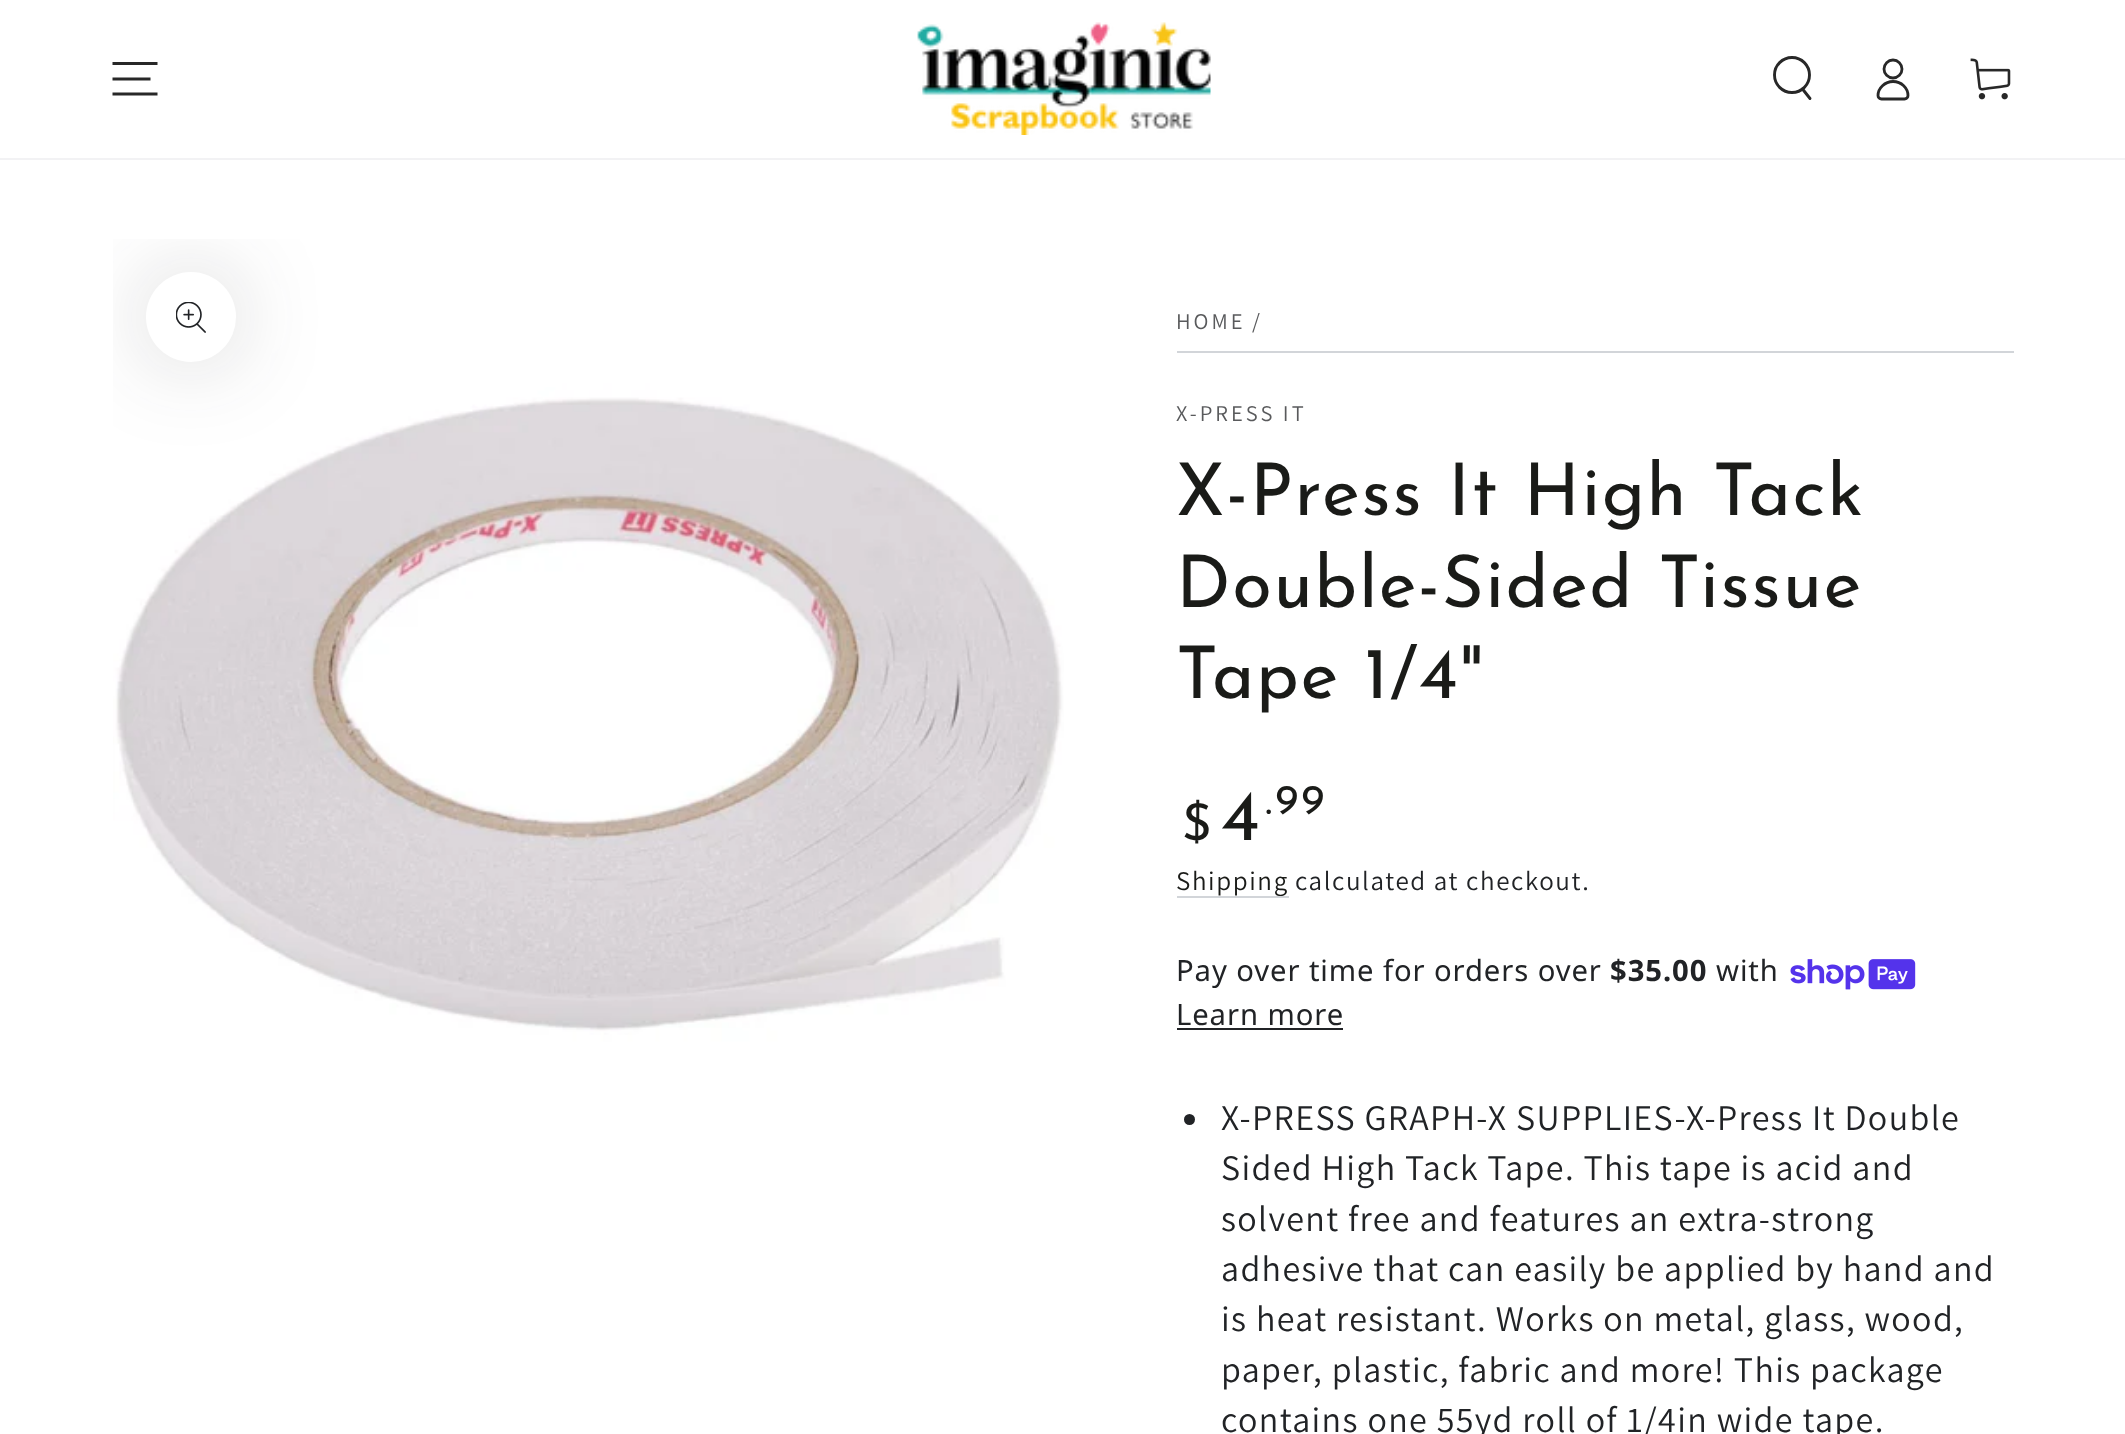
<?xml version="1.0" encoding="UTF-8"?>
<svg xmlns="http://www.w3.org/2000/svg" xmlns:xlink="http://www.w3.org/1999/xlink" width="2125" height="1434">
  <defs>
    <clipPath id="clip1"><rect x="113" y="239" width="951" height="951" /></clipPath>
  </defs>
  <rect width="100%" height="100%" fill="#ffffff" />
  <image x="113" y="239" width="951" height="951" xlink:href="image4.png" />
  <g clip-path="url(#clip1)">
    <rect x="146" y="272" width="90" height="90" rx="45" fill="#212326" fill-opacity="0.2" filter="blur(45px)" />
  </g>
  <rect y="158" width="2125" height="2" fill="#f2f2f4" />
  <path d="M 112.5 94 h 45 m -45 -15 h 38 m -38 -15.5 h 45" fill="none" stroke="#282828" stroke-width="2.8" />
  <image x="917" y="22" width="294" height="113" xlink:href="image1.png" />
  <circle cx="1792" cy="75" r="17.5" fill="none" stroke="#282828" stroke-width="2.9" />
  <path d="M 1802.5 89 l 7.5 9.5" fill="none" stroke="#282828" stroke-width="2.9" stroke-linecap="round" />
  <path d="M 1893 81.5 c -8 0 -15 6.5 -15 14 c 0 2 1.5 3.5 3.5 3.5 h 23 c 2 0 3.5 -1.5 3.5 -3.5 c 0 -7.5 -6.5 -14 -15 -14 z" fill="none" stroke="#282828" stroke-width="2.8" />
  <circle cx="1893" cy="69" r="9" fill="none" stroke="#282828" stroke-width="2.8" />
  <image x="1970" y="58" width="41" height="42" xlink:href="image2.png" />
  <circle cx="191" cy="317" r="45" fill="#ffffff" />
  <image x="176" y="302" width="30" height="31" xlink:href="image3.png" />
  <rect x="1177" y="351" width="837" height="2" fill="#d2d5d9" />
  <rect x="1177" y="896" width="112" height="2" fill="#d2d5d9" />
  <image x="1790" y="959" width="126" height="31" xlink:href="image5.png" />
  <rect x="1177" y="1028" width="166" height="2" fill="#212326" />
  <circle cx="1189.5" cy="1119.5" r="5.5" fill="#212326" />
  <text x="1176" y="329" style="font-family: Assistant; font-size: 22.5px; letter-spacing: 3px; fill: #595a5c">HOME</text>
  <text x="1252" y="329" style="font-family: Assistant; font-size: 22.5px; letter-spacing: 3px; fill: #595a5c">/</text>
  <text x="1176" y="421" style="font-family: Assistant; font-size: 22.5px; letter-spacing: 3px; fill: #595a5c">X-PRESS IT</text>
  <text x="1176" y="515" style="font-family: Josefin Sans; font-size: 72.5px; letter-spacing: 1.55px; fill: #1a1b18">X-Press It High Tack</text>
  <text x="1176" y="607" style="font-family: Josefin Sans; font-size: 72.5px; letter-spacing: 1.55px; fill: #1a1b18">Double-Sided Tissue</text>
  <text x="1176" y="698" style="font-family: Josefin Sans; font-size: 72.5px; letter-spacing: 1.55px; fill: #1a1b18">Tape 1/4"</text>
  <text x="1182" y="840" style="font-family: Josefin Sans; font-size: 51px; letter-spacing: 3px; fill: #1a1b18">$</text>
  <text x="1221" y="840" style="font-family: Josefin Sans; font-size: 72.5px; letter-spacing: 3px; fill: #1a1b18">4</text>
  <text x="1265" y="814" style="font-family: Josefin Sans; font-size: 43px; letter-spacing: 3px; fill: #1a1b18">.99</text>
  <text x="1176" y="890" style="font-family: Assistant; font-size: 27px; letter-spacing: 1.6px; fill: #1a1b18">Shipping</text>
  <text x="1295" y="890" style="font-family: Assistant; font-size: 27px; letter-spacing: 1.6px; fill: #212326">calculated at checkout.</text>
  <text x="1176" y="981" style="font-family: Noto Sans; font-size: 29.25px; letter-spacing: 0.9px; fill: #212326">Pay over time for orders over</text>
  <text x="1610" y="981" style="font-family: Noto Sans; font-size: 29.25px; font-weight: bold; letter-spacing: 0.9px; fill: #212326">$35.00</text>
  <text x="1716" y="981" style="font-family: Noto Sans; font-size: 29.25px; letter-spacing: 0.9px; fill: #212326">with</text>
  <text x="1176" y="1025" style="font-family: Noto Sans; font-size: 29.25px; letter-spacing: 0.9px; fill: #212326">Learn more</text>
  <text x="1221" y="1130" style="font-family: Assistant; font-size: 36px; letter-spacing: 1.35px; fill: #212326">X-PRESS GRAPH-X SUPPLIES-X-Press It Double</text>
  <text x="1221" y="1180" style="font-family: Assistant; font-size: 36px; letter-spacing: 1.35px; fill: #212326">Sided High Tack Tape. This tape is acid and</text>
  <text x="1221" y="1231" style="font-family: Assistant; font-size: 36px; letter-spacing: 1.35px; fill: #212326">solvent free and features an extra-strong</text>
  <text x="1221" y="1281" style="font-family: Assistant; font-size: 36px; letter-spacing: 1.35px; fill: #212326">adhesive that can easily be applied by hand and</text>
  <text x="1221" y="1331" style="font-family: Assistant; font-size: 36px; letter-spacing: 1.35px; fill: #212326">is heat resistant. Works on metal, glass, wood,</text>
  <text x="1221" y="1382" style="font-family: Assistant; font-size: 36px; letter-spacing: 1.35px; fill: #212326">paper, plastic, fabric and more! This package</text>
  <text x="1221" y="1432" style="font-family: Assistant; font-size: 36px; letter-spacing: 1.35px; fill: #212326">contains one 55yd roll of 1/4in wide tape.</text>
</svg>
